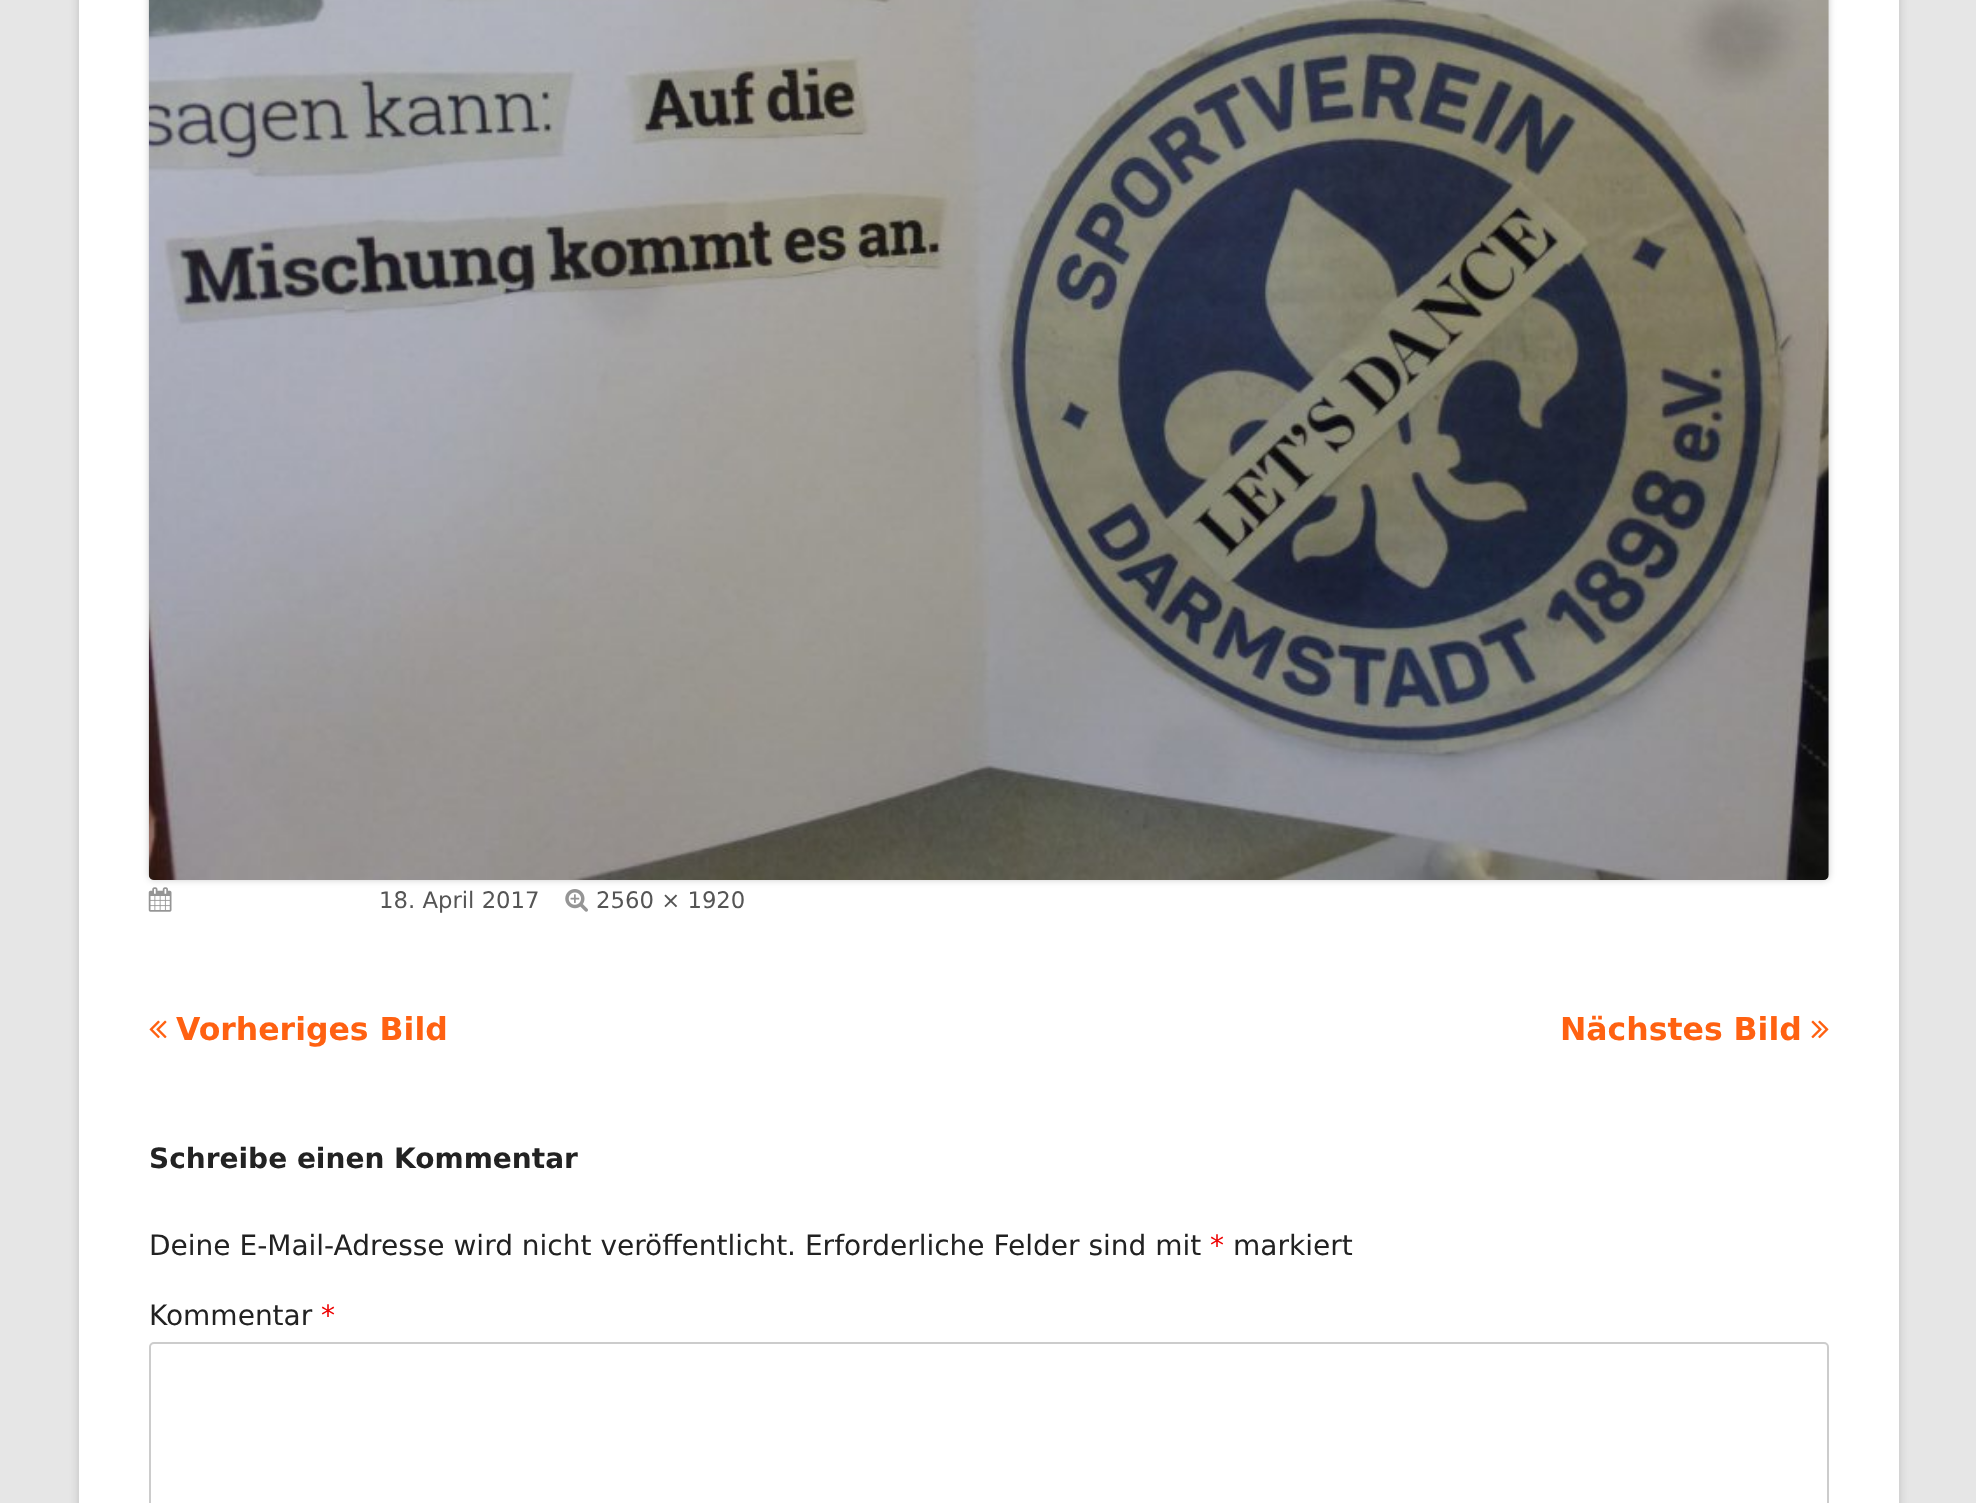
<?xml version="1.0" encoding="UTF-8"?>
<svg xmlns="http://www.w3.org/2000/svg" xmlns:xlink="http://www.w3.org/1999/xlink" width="1976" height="1503">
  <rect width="100%" height="100%" fill="#e6e6e6" />
  <rect x="79" y="-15" width="1820" height="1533" fill="#646464" fill-opacity="0.3" filter="blur(5px)" />
  <rect x="79" width="1820" height="1503" fill="#ffffff" />
  <rect x="149" y="-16" width="1680" height="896" rx="5" fill="#000000" fill-opacity="0.2" filter="blur(3.5px)" />
  <image x="148" y="0" width="1681" height="880" xlink:href="image1.png" />
  <image x="148" y="887" width="24" height="25" xlink:href="image2.png" />
  <image x="565" y="889" width="23" height="23" xlink:href="image3.png" />
  <image x="149" y="1020" width="18" height="19" xlink:href="image4.png" />
  <image x="1811" y="1020" width="18" height="19" xlink:href="image5.png" />
  <rect x="150" y="1343" width="1678" height="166" rx="4" fill="none" stroke="#cccccc" stroke-width="2" />
  <text x="379" y="908" style="font-family: DejaVu Sans; font-size: 22.75px; fill: #555555">18. April 2017</text>
  <text x="596" y="908" style="font-family: DejaVu Sans; font-size: 22.75px; fill: #555555">2560 × 1920</text>
  <text x="176" y="1040" style="font-family: DejaVu Sans; font-size: 31.5px; font-weight: bold; fill: #ff6111">Vorheriges Bild</text>
  <text x="1560" y="1040" style="font-family: DejaVu Sans; font-size: 31.5px; font-weight: bold; fill: #ff6111">Nächstes Bild</text>
  <text x="149" y="1168" style="font-family: DejaVu Sans; font-size: 28px; font-weight: bold; fill: #222222">Schreibe einen Kommentar</text>
  <text x="149" y="1255" style="font-family: DejaVu Sans; font-size: 28px; fill: #222222">Deine E-Mail-Adresse wird nicht veröffentlicht. Erforderliche Felder sind mit</text>
  <text x="1210" y="1255" style="font-family: DejaVu Sans; font-size: 28px; fill: #ee0000">*</text>
  <text x="1233" y="1255" style="font-family: DejaVu Sans; font-size: 28px; fill: #222222">markiert</text>
  <text x="149" y="1325" style="font-family: DejaVu Sans; font-size: 28px; fill: #222222">Kommentar</text>
  <text x="321" y="1325" style="font-family: DejaVu Sans; font-size: 28px; fill: #ee0000">*</text>
</svg>
